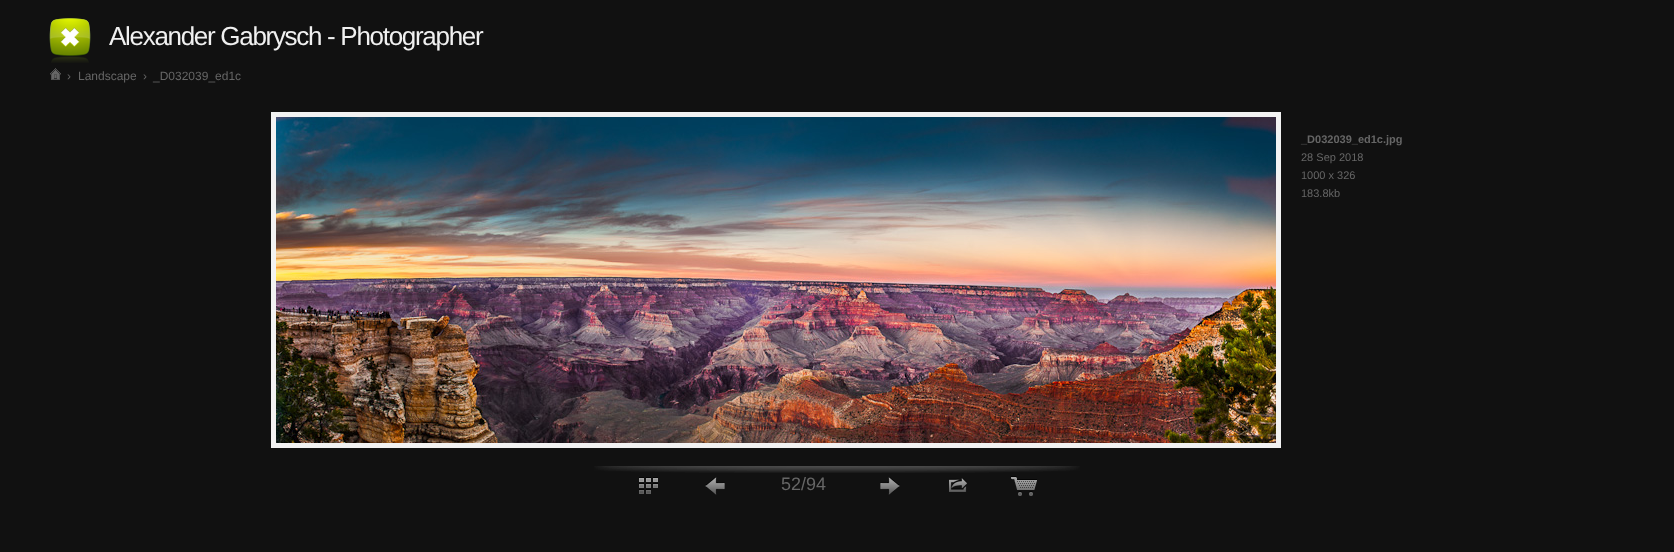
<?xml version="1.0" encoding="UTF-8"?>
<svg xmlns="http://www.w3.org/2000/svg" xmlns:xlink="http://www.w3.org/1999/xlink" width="1674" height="552">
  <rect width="100%" height="100%" fill="#111111" />
  <image x="49" y="18" width="42" height="45" xlink:href="image1.png" />
  <image x="50" y="68" width="11" height="12" xlink:href="image2.png" />
  <rect x="273.5" y="114.5" width="1005" height="331" fill="none" stroke="#f2f2f2" stroke-width="5" />
  <image x="276" y="117" width="1000" height="326" xlink:href="image3.png" />
  <image x="594" y="466" width="486" height="7" xlink:href="image4.png" />
  <image x="639" y="477" width="19" height="17" xlink:href="image5.png" />
  <image x="705" y="477" width="20" height="18" xlink:href="image6.png" />
  <image x="880" y="477" width="20" height="18" xlink:href="image7.png" />
  <image x="949" y="478" width="18" height="14" xlink:href="image8.png" />
  <image x="1011" y="476" width="26" height="20" xlink:href="image9.png" />
  <text x="109" y="45" style="font-family: Liberation Sans; font-size: 26px; letter-spacing: -1.3px; fill: #f0f0f0">Alexander Gabrysch - Photographer</text>
  <text x="67" y="80" style="font-family: Liberation Sans; font-size: 12px; fill: #666666">›</text>
  <text x="78" y="80" style="font-family: Liberation Sans; font-size: 12px; fill: #666666">Landscape</text>
  <text x="143" y="80" style="font-family: Liberation Sans; font-size: 12px; fill: #666666">›</text>
  <text x="153" y="80" style="font-family: Liberation Sans; font-size: 12px; fill: #666666">_D032039_ed1c</text>
  <text x="1301" y="143" style="font-family: Liberation Sans; font-size: 11px; font-weight: bold; fill: #666666">_D032039_ed1c.jpg</text>
  <text x="1301" y="161" style="font-family: Liberation Sans; font-size: 11px; fill: #666666">28 Sep 2018</text>
  <text x="1301" y="179" style="font-family: Liberation Sans; font-size: 11px; fill: #666666">1000 x 326</text>
  <text x="1301" y="197" style="font-family: Liberation Sans; font-size: 11px; fill: #666666">183.8kb</text>
  <text x="781" y="490" style="font-family: Liberation Sans; font-size: 18px; fill: #666666">52/94</text>
</svg>
